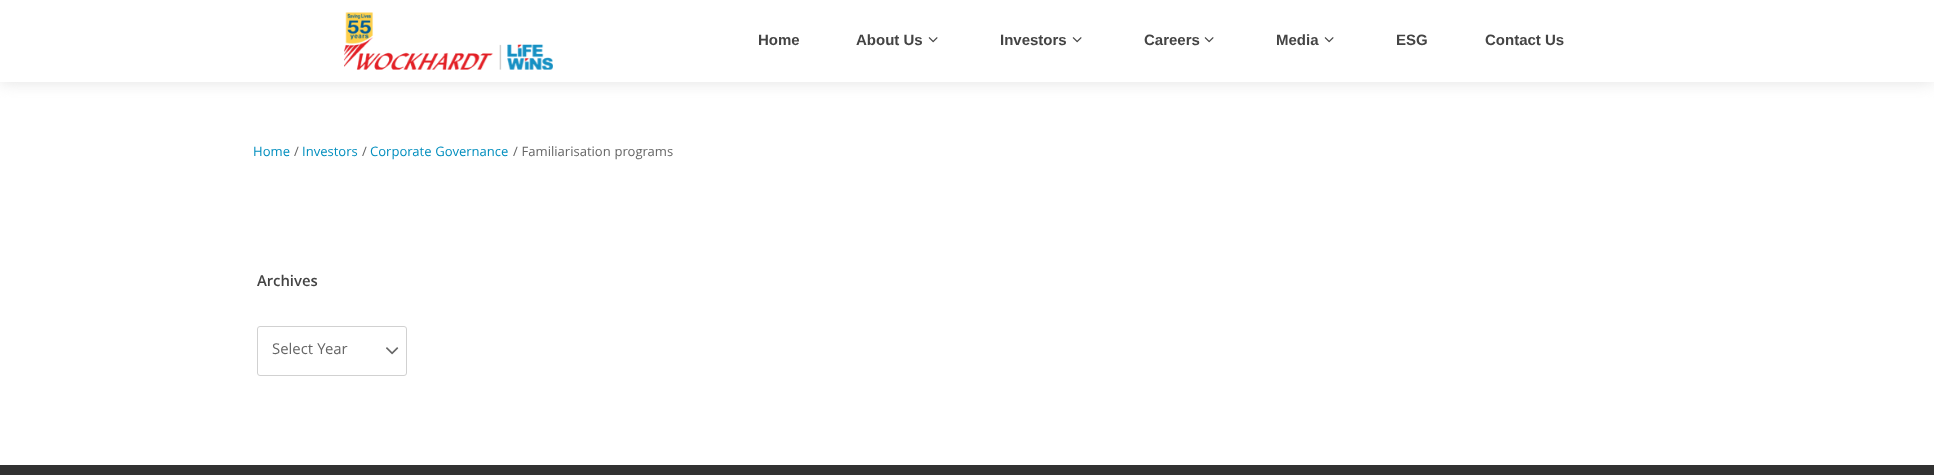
<?xml version="1.0" encoding="UTF-8"?>
<svg xmlns="http://www.w3.org/2000/svg" xmlns:xlink="http://www.w3.org/1999/xlink" width="1934" height="475">
  <defs>
    <clipPath id="clip1"><rect x="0" y="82" width="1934" height="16" /></clipPath>
  </defs>
  <rect width="100%" height="100%" fill="#ffffff" />
  <g clip-path="url(#clip1)">
    <rect y="1" width="1934" height="82" fill="#e4e4e4" filter="blur(7.5px)" />
  </g>
  <image x="344" y="12" width="209" height="58" xlink:href="image1.png" />
  <image x="928" y="37" width="10" height="6" xlink:href="image2.png" />
  <image x="1072" y="37" width="10" height="6" xlink:href="image2.png" />
  <image x="1204" y="37" width="10" height="6" xlink:href="image2.png" />
  <image x="1324" y="37" width="10" height="6" xlink:href="image2.png" />
  <rect x="257.5" y="326.5" width="149" height="49" rx="2.5" fill="none" stroke="#d1d1d1" />
  <image x="386" y="347" width="13" height="8" xlink:href="image3.png" />
  <rect y="465" width="1934" height="10" fill="#313131" />
  <text x="758" y="45" style="font-family: Liberation Sans; font-size: 15px; font-weight: bold; fill: #444444">Home</text>
  <text x="856" y="45" style="font-family: Liberation Sans; font-size: 15px; font-weight: bold; fill: #444444">About Us</text>
  <text x="1000" y="45" style="font-family: Liberation Sans; font-size: 15px; font-weight: bold; fill: #444444">Investors</text>
  <text x="1144" y="45" style="font-family: Liberation Sans; font-size: 15px; font-weight: bold; fill: #444444">Careers</text>
  <text x="1276" y="45" style="font-family: Liberation Sans; font-size: 15px; font-weight: bold; fill: #444444">Media</text>
  <text x="1396" y="45" style="font-family: Liberation Sans; font-size: 15px; font-weight: bold; fill: #444444">ESG</text>
  <text x="1485" y="45" style="font-family: Liberation Sans; font-size: 15px; font-weight: bold; fill: #444444">Contact Us</text>
  <text x="253" y="156" style="font-family: Khula; font-size: 14px; fill: #018ebe">Home</text>
  <text x="294" y="156" style="font-family: Khula; font-size: 14px; fill: #666666">/</text>
  <text x="302" y="156" style="font-family: Khula; font-size: 14px; fill: #018ebe">Investors</text>
  <text x="362" y="156" style="font-family: Khula; font-size: 14px; fill: #666666">/</text>
  <text x="370" y="156" style="font-family: Khula; font-size: 14px; fill: #018ebe">Corporate Governance</text>
  <text x="513" y="156" style="font-family: Khula; font-size: 14px; fill: #666666">/ Familiarisation programs</text>
  <text x="257" y="286" style="font-family: Khula; font-size: 16px; font-weight: 600; fill: #444444">Archives</text>
  <text x="272" y="354" style="font-family: Khula; font-size: 16px; fill: #666666">Select Year</text>
</svg>
